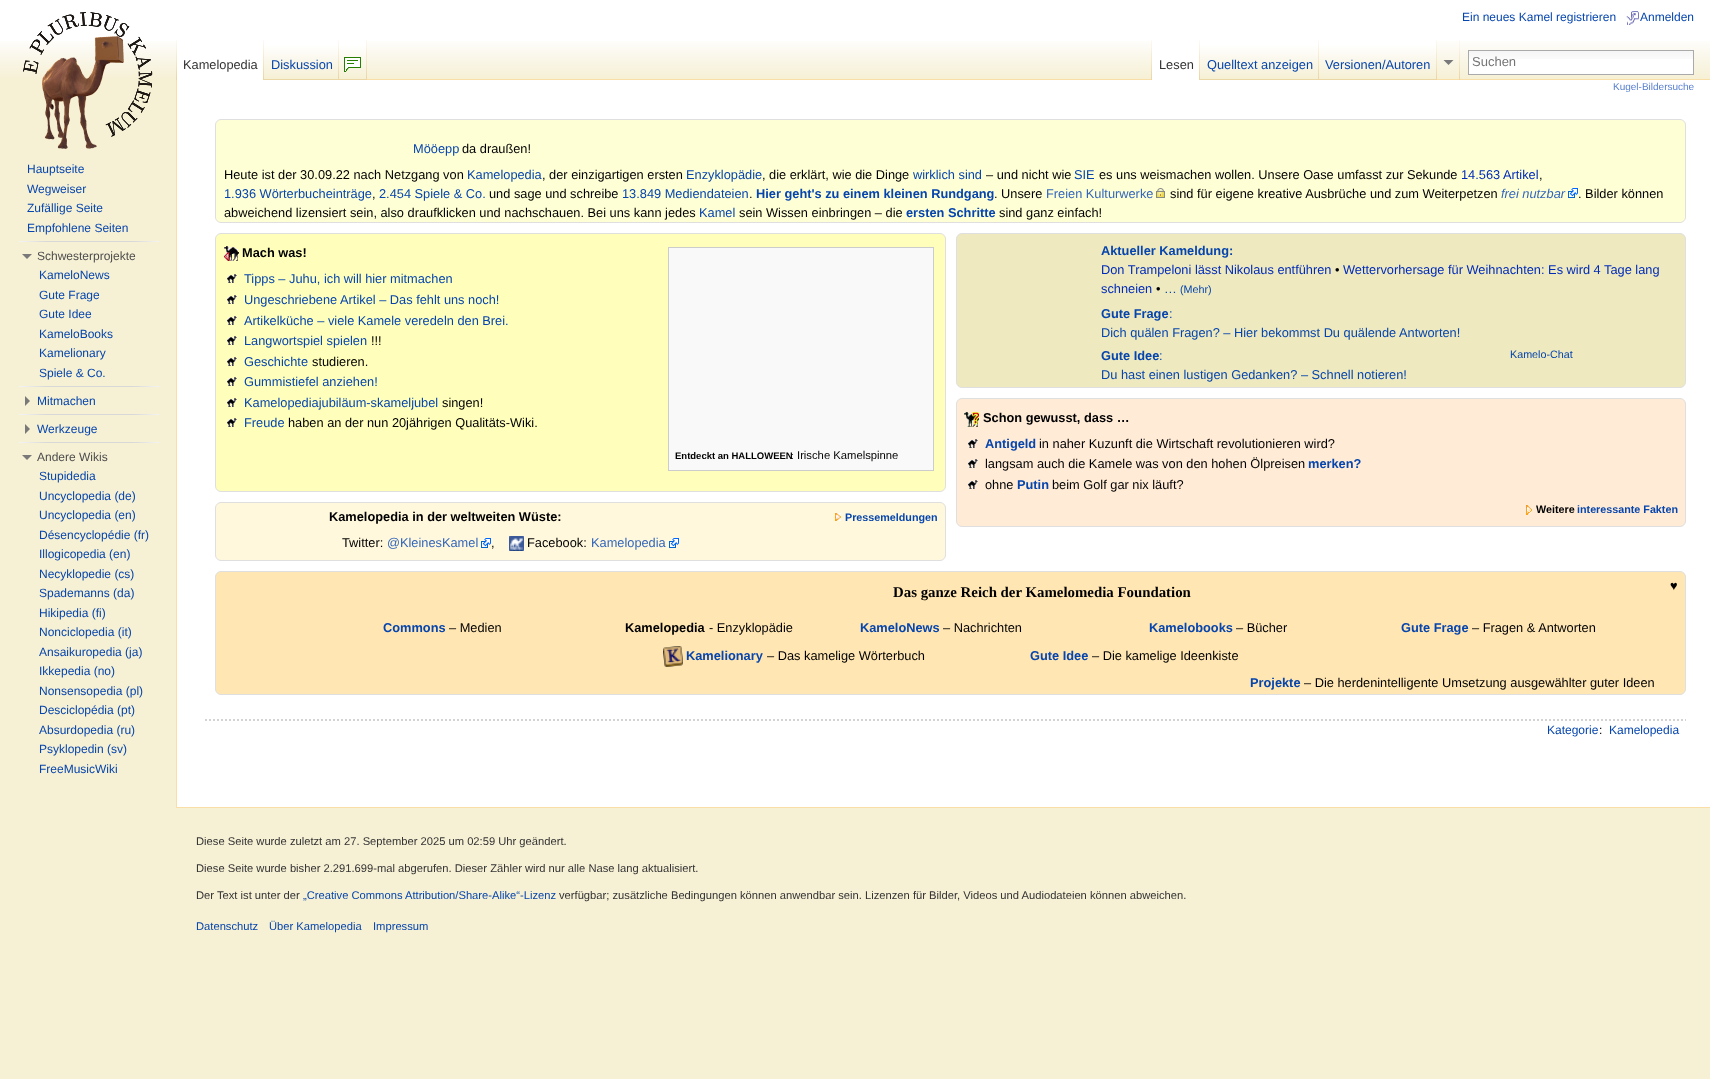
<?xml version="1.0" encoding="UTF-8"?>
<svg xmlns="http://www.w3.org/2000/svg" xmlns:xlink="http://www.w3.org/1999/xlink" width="1710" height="1079">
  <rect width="100%" height="100%" fill="#f6f0d4" />
  <rect width="1710" height="41" fill="#ffffff" />
  <image x="0" y="41" width="1710" height="39" xlink:href="image1.png" />
  <image x="1626" y="11" width="13" height="14" xlink:href="image2.png" />
  <rect x="176" y="807" width="1534" height="1" fill="#f9dfa7" />
  <rect x="176" y="79" width="1" height="729" fill="#f9dfa7" />
  <image x="176" y="40" width="1" height="40" xlink:href="image3.png" />
  <rect x="177" y="41" width="86" height="39" fill="#ffffff" />
  <image x="263" y="40" width="1" height="40" xlink:href="image3.png" />
  <image x="264" y="40" width="75" height="40" xlink:href="image4.png" />
  <image x="338" y="40" width="1" height="39" xlink:href="image5.png" />
  <image x="339" y="40" width="28" height="40" xlink:href="image6.png" />
  <image x="366" y="40" width="1" height="39" xlink:href="image7.png" />
  <image x="344" y="57" width="17" height="15" xlink:href="image8.png" />
  <rect x="367" y="79" width="1343" height="1" fill="#f9dfa7" />
  <image x="1151" y="40" width="1" height="40" xlink:href="image3.png" />
  <rect x="1152" y="41" width="47" height="39" fill="#ffffff" />
  <image x="1199" y="40" width="1" height="40" xlink:href="image3.png" />
  <image x="1200" y="40" width="119" height="40" xlink:href="image9.png" />
  <image x="1318" y="40" width="1" height="39" xlink:href="image5.png" />
  <image x="1319" y="40" width="118" height="40" xlink:href="image10.png" />
  <image x="1436" y="40" width="1" height="39" xlink:href="image5.png" />
  <path d="M 1453.5 60 l -5 5 l -5 -5 z" fill="#797979" />
  <image x="1459" y="40" width="1" height="40" xlink:href="image3.png" />
  <rect x="1469" y="59" width="224" height="15" fill="#ffffff" />
  <image x="1469" y="51" width="224" height="8" xlink:href="image11.png" />
  <rect x="1468.5" y="50.5" width="225" height="24" fill="none" stroke="#aaaaaa" />
  <image x="23" y="12" width="130" height="137" xlink:href="image12.png" />
  <image x="19" y="241" width="140" height="1" xlink:href="image13.png" />
  <path d="M 32 254 l -5 5 l -5 -5 z" fill="#797979" />
  <image x="19" y="386" width="140" height="1" xlink:href="image13.png" />
  <path d="M 25 396 l 5 5 l -5 5 z" fill="#797979" />
  <image x="19" y="414" width="140" height="1" xlink:href="image13.png" />
  <path d="M 25 424 l 5 5 l -5 5 z" fill="#797979" />
  <image x="19" y="442" width="140" height="1" xlink:href="image13.png" />
  <path d="M 32 455 l -5 5 l -5 -5 z" fill="#797979" />
  <rect x="177" y="80" width="1533" height="727" fill="#ffffff" />
  <rect x="215.5" y="119.5" width="1470" height="103" rx="5.5" fill="#ffffd6" stroke="#dfdfdf" />
  <image x="1156" y="188" width="9" height="10" xlink:href="image14.png" />
  <image x="1568" y="188" width="10" height="10" xlink:href="image15.png" />
  <rect x="215.5" y="233.5" width="730" height="258" rx="5.5" fill="#ffffbb" stroke="#dfdfdf" />
  <image x="224" y="246" width="15" height="15" xlink:href="image16.png" />
  <image x="227" y="274" width="10" height="9" xlink:href="image17.png" />
  <image x="227" y="295" width="10" height="9" xlink:href="image17.png" />
  <image x="227" y="316" width="10" height="9" xlink:href="image17.png" />
  <image x="227" y="336" width="10" height="9" xlink:href="image17.png" />
  <image x="227" y="357" width="10" height="9" xlink:href="image17.png" />
  <image x="227" y="377" width="10" height="9" xlink:href="image17.png" />
  <image x="227" y="398" width="10" height="9" xlink:href="image17.png" />
  <image x="227" y="418" width="10" height="9" xlink:href="image17.png" />
  <rect x="668.5" y="247.5" width="265" height="223" fill="#f9f9f9" stroke="#cccccc" />
  <rect x="215.5" y="502.5" width="730" height="58" rx="5.5" fill="#fff8dc" stroke="#dfdfdf" />
  <image x="835" y="513" width="6" height="8" xlink:href="image18.png" />
  <image x="481" y="538" width="10" height="10" xlink:href="image19.png" />
  <image x="509" y="536" width="15" height="15" xlink:href="image20.png" />
  <image x="669" y="538" width="10" height="10" xlink:href="image19.png" />
  <rect x="956.5" y="233.5" width="729" height="154" rx="5.5" fill="#eee9bf" stroke="#dfdfdf" />
  <rect x="956.5" y="398.5" width="729" height="128" rx="5.5" fill="#ffebd6" stroke="#dfdfdf" />
  <image x="964" y="412" width="15" height="15" xlink:href="image21.png" />
  <image x="968" y="439" width="10" height="9" xlink:href="image22.png" />
  <image x="968" y="459" width="10" height="9" xlink:href="image22.png" />
  <image x="968" y="480" width="10" height="9" xlink:href="image22.png" />
  <image x="1526" y="505" width="6" height="10" xlink:href="image23.png" />
  <rect x="215.5" y="571.5" width="1470" height="123" rx="5.5" fill="#ffe6b3" stroke="#dfdfdf" />
  <image x="663" y="646" width="20" height="21" xlink:href="image24.png" />
  <path d="M 205 720 h 1481" fill="none" stroke="#d3d3d3" stroke-width="2" stroke-dasharray="2 2" />
  <text x="1462" y="21" style="font-family: Liberation Sans; font-size: 12px; fill: #0645ad">Ein neues Kamel registrieren</text>
  <text x="1640" y="21" style="font-family: Liberation Sans; font-size: 12px; fill: #0645ad">Anmelden</text>
  <text x="183" y="69" style="font-family: Liberation Sans; font-size: 12.8px; fill: #333333">Kamelopedia</text>
  <text x="271" y="69" style="font-family: Liberation Sans; font-size: 12.8px; fill: #0645ad">Diskussion</text>
  <text x="1159" y="69" style="font-family: Liberation Sans; font-size: 12.8px; fill: #333333">Lesen</text>
  <text x="1207" y="69" style="font-family: Liberation Sans; font-size: 12.8px; fill: #0645ad">Quelltext anzeigen</text>
  <text x="1325" y="69" style="font-family: Liberation Sans; font-size: 12.8px; fill: #0645ad">Versionen/Autoren</text>
  <text x="1472" y="66" style="font-family: Liberation Sans; font-size: 13px; fill: #757575">Suchen</text>
  <text x="1613" y="90" style="font-family: Liberation Sans; font-size: 10px; fill: #577fcf">Kugel-Bildersuche</text>
  <text x="27" y="173" style="font-family: Liberation Sans; font-size: 12px; fill: #0645ad">Hauptseite</text>
  <text x="27" y="193" style="font-family: Liberation Sans; font-size: 12px; fill: #0645ad">Wegweiser</text>
  <text x="27" y="212" style="font-family: Liberation Sans; font-size: 12px; fill: #0645ad">Zufällige Seite</text>
  <text x="27" y="232" style="font-family: Liberation Sans; font-size: 12px; fill: #0645ad">Empfohlene Seiten</text>
  <text x="37" y="260" style="font-family: Liberation Sans; font-size: 12px; fill: #4d4d4d">Schwesterprojekte</text>
  <text x="39" y="279" style="font-family: Liberation Sans; font-size: 12px; fill: #0645ad">KameloNews</text>
  <text x="39" y="299" style="font-family: Liberation Sans; font-size: 12px; fill: #0645ad">Gute Frage</text>
  <text x="39" y="318" style="font-family: Liberation Sans; font-size: 12px; fill: #0645ad">Gute Idee</text>
  <text x="39" y="338" style="font-family: Liberation Sans; font-size: 12px; fill: #0645ad">KameloBooks</text>
  <text x="39" y="357" style="font-family: Liberation Sans; font-size: 12px; fill: #0645ad">Kamelionary</text>
  <text x="39" y="377" style="font-family: Liberation Sans; font-size: 12px; fill: #0645ad">Spiele &amp; Co.</text>
  <text x="37" y="405" style="font-family: Liberation Sans; font-size: 12px; fill: #0645ad">Mitmachen</text>
  <text x="37" y="433" style="font-family: Liberation Sans; font-size: 12px; fill: #0645ad">Werkzeuge</text>
  <text x="37" y="461" style="font-family: Liberation Sans; font-size: 12px; fill: #4d4d4d">Andere Wikis</text>
  <text x="39" y="480" style="font-family: Liberation Sans; font-size: 12px; fill: #0645ad">Stupidedia</text>
  <text x="39" y="500" style="font-family: Liberation Sans; font-size: 12px; fill: #0645ad">Uncyclopedia (de)</text>
  <text x="39" y="519" style="font-family: Liberation Sans; font-size: 12px; fill: #0645ad">Uncyclopedia (en)</text>
  <text x="39" y="539" style="font-family: Liberation Sans; font-size: 12px; fill: #0645ad">Désencyclopédie (fr)</text>
  <text x="39" y="558" style="font-family: Liberation Sans; font-size: 12px; fill: #0645ad">Illogicopedia (en)</text>
  <text x="39" y="578" style="font-family: Liberation Sans; font-size: 12px; fill: #0645ad">Necyklopedie (cs)</text>
  <text x="39" y="597" style="font-family: Liberation Sans; font-size: 12px; fill: #0645ad">Spademanns (da)</text>
  <text x="39" y="617" style="font-family: Liberation Sans; font-size: 12px; fill: #0645ad">Hikipedia (fi)</text>
  <text x="39" y="636" style="font-family: Liberation Sans; font-size: 12px; fill: #0645ad">Nonciclopedia (it)</text>
  <text x="39" y="656" style="font-family: Liberation Sans; font-size: 12px; fill: #0645ad">Ansaikuropedia (ja)</text>
  <text x="39" y="675" style="font-family: Liberation Sans; font-size: 12px; fill: #0645ad">Ikkepedia (no)</text>
  <text x="39" y="695" style="font-family: Liberation Sans; font-size: 12px; fill: #0645ad">Nonsensopedia (pl)</text>
  <text x="39" y="714" style="font-family: Liberation Sans; font-size: 12px; fill: #0645ad">Desciclopédia (pt)</text>
  <text x="39" y="734" style="font-family: Liberation Sans; font-size: 12px; fill: #0645ad">Absurdopedia (ru)</text>
  <text x="39" y="753" style="font-family: Liberation Sans; font-size: 12px; fill: #0645ad">Psyklopedin (sv)</text>
  <text x="39" y="773" style="font-family: Liberation Sans; font-size: 12px; fill: #0645ad">FreeMusicWiki</text>
  <text x="413" y="153" style="font-family: Liberation Sans; font-size: 12.8px; fill: #0645ad">Mööepp</text>
  <text x="462" y="153" style="font-family: Liberation Sans; font-size: 12.8px; fill: #000000">da draußen!</text>
  <text x="224" y="179" style="font-family: Liberation Sans; font-size: 12.8px; fill: #000000">Heute ist der 30.09.22 nach Netzgang von</text>
  <text x="467" y="179" style="font-family: Liberation Sans; font-size: 12.8px; fill: #0645ad">Kamelopedia</text>
  <text x="542" y="179" style="font-family: Liberation Sans; font-size: 12.8px; fill: #000000">, der einzigartigen ersten</text>
  <text x="686" y="179" style="font-family: Liberation Sans; font-size: 12.8px; fill: #0645ad">Enzyklopädie</text>
  <text x="762" y="179" style="font-family: Liberation Sans; font-size: 12.8px; fill: #000000">, die erklärt, wie die Dinge</text>
  <text x="913" y="179" style="font-family: Liberation Sans; font-size: 12.8px; fill: #0645ad">wirklich sind</text>
  <text x="986" y="179" style="font-family: Liberation Sans; font-size: 12.8px; fill: #000000">– und nicht wie</text>
  <text x="1074" y="179" style="font-family: Liberation Sans; font-size: 12.8px; fill: #0645ad">SIE</text>
  <text x="1099" y="179" style="font-family: Liberation Sans; font-size: 12.8px; fill: #000000">es uns weismachen wollen. Unsere Oase umfasst zur Sekunde</text>
  <text x="1461" y="179" style="font-family: Liberation Sans; font-size: 12.8px; fill: #002bb8">14.563 Artikel</text>
  <text x="1539" y="179" style="font-family: Liberation Sans; font-size: 12.8px; fill: #000000">,</text>
  <text x="224" y="198" style="font-family: Liberation Sans; font-size: 12.8px; fill: #0645ad">1.936 Wörterbucheinträge</text>
  <text x="372" y="198" style="font-family: Liberation Sans; font-size: 12.8px; fill: #000000">,</text>
  <text x="379" y="198" style="font-family: Liberation Sans; font-size: 12.8px; fill: #0645ad">2.454 Spiele &amp; Co.</text>
  <text x="489" y="198" style="font-family: Liberation Sans; font-size: 12.8px; fill: #000000">und sage und schreibe</text>
  <text x="622" y="198" style="font-family: Liberation Sans; font-size: 12.8px; fill: #0645ad">13.849 Mediendateien</text>
  <text x="749" y="198" style="font-family: Liberation Sans; font-size: 12.8px; fill: #000000">.</text>
  <text x="756" y="198" style="font-family: Liberation Sans; font-size: 12.8px; font-weight: bold; fill: #0645ad">Hier geht's zu einem kleinen Rundgang</text>
  <text x="994" y="198" style="font-family: Liberation Sans; font-size: 12.8px; fill: #000000">. Unsere</text>
  <text x="1046" y="198" style="font-family: Liberation Sans; font-size: 12.8px; fill: #3366bb">Freien Kulturwerke</text>
  <text x="1170" y="198" style="font-family: Liberation Sans; font-size: 12.8px; fill: #000000">sind für eigene kreative Ausbrüche und zum Weiterpetzen</text>
  <text x="1501" y="198" style="font-family: Liberation Sans; font-size: 12.8px; font-style: italic; fill: #3366bb">frei nutzbar</text>
  <text x="1578" y="198" style="font-family: Liberation Sans; font-size: 12.8px; fill: #000000">. Bilder können</text>
  <text x="224" y="217" style="font-family: Liberation Sans; font-size: 12.8px; fill: #000000">abweichend lizensiert sein, also draufklicken und nachschauen. Bei uns kann jedes</text>
  <text x="699" y="217" style="font-family: Liberation Sans; font-size: 12.8px; fill: #0645ad">Kamel</text>
  <text x="739" y="217" style="font-family: Liberation Sans; font-size: 12.8px; fill: #000000">sein Wissen einbringen – die</text>
  <text x="906" y="217" style="font-family: Liberation Sans; font-size: 12.8px; font-weight: bold; fill: #0645ad">ersten Schritte</text>
  <text x="999" y="217" style="font-family: Liberation Sans; font-size: 12.8px; fill: #000000">sind ganz einfach!</text>
  <text x="242" y="257" style="font-family: Liberation Sans; font-size: 12.8px; font-weight: bold; fill: #000000">Mach was!</text>
  <text x="244" y="283" style="font-family: Liberation Sans; font-size: 12.8px; fill: #0645ad">Tipps – Juhu, ich will hier mitmachen</text>
  <text x="244" y="304" style="font-family: Liberation Sans; font-size: 12.8px; fill: #0645ad">Ungeschriebene Artikel – Das fehlt uns noch!</text>
  <text x="244" y="325" style="font-family: Liberation Sans; font-size: 12.8px; fill: #0645ad">Artikelküche – viele Kamele veredeln den Brei.</text>
  <text x="244" y="345" style="font-family: Liberation Sans; font-size: 12.8px; fill: #0645ad">Langwortspiel spielen</text>
  <text x="371" y="345" style="font-family: Liberation Sans; font-size: 12.8px; fill: #000000">!!!</text>
  <text x="244" y="366" style="font-family: Liberation Sans; font-size: 12.8px; fill: #0645ad">Geschichte</text>
  <text x="312" y="366" style="font-family: Liberation Sans; font-size: 12.8px; fill: #000000">studieren.</text>
  <text x="244" y="386" style="font-family: Liberation Sans; font-size: 12.8px; fill: #0645ad">Gummistiefel anziehen!</text>
  <text x="244" y="407" style="font-family: Liberation Sans; font-size: 12.8px; fill: #0645ad">Kamelopediajubiläum-skameljubel</text>
  <text x="442" y="407" style="font-family: Liberation Sans; font-size: 12.8px; fill: #000000">singen!</text>
  <text x="244" y="427" style="font-family: Liberation Sans; font-size: 12.8px; fill: #0645ad">Freude</text>
  <text x="288" y="427" style="font-family: Liberation Sans; font-size: 12.8px; fill: #000000">haben an der nun 20jährigen Qualitäts-Wiki.</text>
  <text x="675" y="459" style="font-family: Liberation Sans; font-size: 9.5px; font-weight: bold; fill: #000000">Entdeckt an HALLOWEEN</text>
  <text x="791" y="459" style="font-family: Liberation Sans; font-size: 9.5px; fill: #000000">:</text>
  <text x="797" y="459" style="font-family: Liberation Sans; font-size: 11.25px; fill: #000000">Irische Kamelspinne</text>
  <text x="329" y="521" style="font-family: Liberation Sans; font-size: 12.8px; font-weight: bold; fill: #000000">Kamelopedia in der weltweiten Wüste:</text>
  <text x="845" y="521" style="font-family: Liberation Sans; font-size: 10.75px; font-weight: bold; fill: #0645ad">Pressemeldungen</text>
  <text x="342" y="547" style="font-family: Liberation Sans; font-size: 12.8px; fill: #000000">Twitter:</text>
  <text x="387" y="547" style="font-family: Liberation Sans; font-size: 12.8px; fill: #3366bb">@KleinesKamel</text>
  <text x="491" y="547" style="font-family: Liberation Sans; font-size: 12.8px; fill: #000000">,</text>
  <text x="527" y="547" style="font-family: Liberation Sans; font-size: 12.8px; fill: #000000">Facebook:</text>
  <text x="591" y="547" style="font-family: Liberation Sans; font-size: 12.8px; fill: #3366bb">Kamelopedia</text>
  <text x="1101" y="255" style="font-family: Liberation Sans; font-size: 12.8px; font-weight: bold; fill: #0645ad">Aktueller Kameldung:</text>
  <text x="1101" y="274" style="font-family: Liberation Sans; font-size: 12.8px; fill: #002bb8">Don Trampeloni lässt Nikolaus entführen</text>
  <text x="1335" y="274" style="font-family: Liberation Sans; font-size: 12.8px; fill: #000000">•</text>
  <text x="1343" y="274" style="font-family: Liberation Sans; font-size: 12.8px; fill: #002bb8">Wettervorhersage für Weihnachten: Es wird 4 Tage lang</text>
  <text x="1101" y="293" style="font-family: Liberation Sans; font-size: 12.8px; fill: #002bb8">schneien</text>
  <text x="1156" y="293" style="font-family: Liberation Sans; font-size: 12.8px; fill: #000000">•</text>
  <text x="1180" y="293" style="font-family: Liberation Sans; font-size: 10.75px; fill: #0645ad">(Mehr)</text>
  <text x="1164" y="293" style="font-family: Liberation Sans; font-size: 12.8px; fill: #0645ad">…</text>
  <text x="1101" y="318" style="font-family: Liberation Sans; font-size: 12.8px; font-weight: bold; fill: #0645ad">Gute Frage</text>
  <text x="1169" y="318" style="font-family: Liberation Sans; font-size: 12.8px; fill: #0645ad">:</text>
  <text x="1101" y="337" style="font-family: Liberation Sans; font-size: 12.8px; fill: #0645ad">Dich quälen Fragen? – Hier bekommst Du quälende Antworten!</text>
  <text x="1510" y="358" style="font-family: Liberation Sans; font-size: 10.75px; fill: #0645ad">Kamelo-Chat</text>
  <text x="1101" y="360" style="font-family: Liberation Sans; font-size: 12.8px; font-weight: bold; fill: #0645ad">Gute Idee</text>
  <text x="1159" y="360" style="font-family: Liberation Sans; font-size: 12.8px; fill: #0645ad">:</text>
  <text x="1101" y="379" style="font-family: Liberation Sans; font-size: 12.8px; fill: #0645ad">Du hast einen lustigen Gedanken? – Schnell notieren!</text>
  <text x="983" y="422" style="font-family: Liberation Sans; font-size: 12.8px; font-weight: bold; fill: #000000">Schon gewusst, dass …</text>
  <text x="985" y="448" style="font-family: Liberation Sans; font-size: 12.8px; font-weight: bold; fill: #0645ad">Antigeld</text>
  <text x="1039" y="448" style="font-family: Liberation Sans; font-size: 12.8px; fill: #000000">in naher Kuzunft die Wirtschaft revolutionieren wird?</text>
  <text x="985" y="468" style="font-family: Liberation Sans; font-size: 12.8px; fill: #000000">langsam auch die Kamele was von den hohen Ölpreisen</text>
  <text x="1308" y="468" style="font-family: Liberation Sans; font-size: 12.8px; font-weight: bold; fill: #0645ad">merken?</text>
  <text x="985" y="489" style="font-family: Liberation Sans; font-size: 12.8px; fill: #000000">ohne</text>
  <text x="1017" y="489" style="font-family: Liberation Sans; font-size: 12.8px; font-weight: bold; fill: #0645ad">Putin</text>
  <text x="1052" y="489" style="font-family: Liberation Sans; font-size: 12.8px; fill: #000000">beim Golf gar nix läuft?</text>
  <text x="1536" y="513" style="font-family: Liberation Sans; font-size: 10.75px; font-weight: bold; fill: #000000">Weitere</text>
  <text x="1577" y="513" style="font-family: Liberation Sans; font-size: 10.75px; font-weight: bold; fill: #0645ad">interessante Fakten</text>
  <text x="893" y="597" style="font-family: Liberation Serif; font-size: 14.85px; font-weight: bold; fill: #000000">Das ganze Reich der Kamelomedia Foundation</text>
  <text x="1670" y="590" style="font-family: Liberation Sans; font-size: 12.8px; fill: #000000">♥</text>
  <text x="383" y="632" style="font-family: Liberation Sans; font-size: 12.8px; font-weight: bold; fill: #0645ad">Commons</text>
  <text x="449" y="632" style="font-family: Liberation Sans; font-size: 12.8px; fill: #000000">– Medien</text>
  <text x="625" y="632" style="font-family: Liberation Sans; font-size: 12.8px; font-weight: bold; fill: #000000">Kamelopedia</text>
  <text x="709" y="632" style="font-family: Liberation Sans; font-size: 12.8px; fill: #000000">- Enzyklopädie</text>
  <text x="860" y="632" style="font-family: Liberation Sans; font-size: 12.8px; font-weight: bold; fill: #0645ad">KameloNews</text>
  <text x="943" y="632" style="font-family: Liberation Sans; font-size: 12.8px; fill: #000000">– Nachrichten</text>
  <text x="1149" y="632" style="font-family: Liberation Sans; font-size: 12.8px; font-weight: bold; fill: #0645ad">Kamelobooks</text>
  <text x="1236" y="632" style="font-family: Liberation Sans; font-size: 12.8px; fill: #000000">– Bücher</text>
  <text x="1401" y="632" style="font-family: Liberation Sans; font-size: 12.8px; font-weight: bold; fill: #0645ad">Gute Frage</text>
  <text x="1472" y="632" style="font-family: Liberation Sans; font-size: 12.8px; fill: #000000">– Fragen &amp; Antworten</text>
  <text x="686" y="660" style="font-family: Liberation Sans; font-size: 12.8px; font-weight: bold; fill: #0645ad">Kamelionary</text>
  <text x="767" y="660" style="font-family: Liberation Sans; font-size: 12.8px; fill: #000000">– Das kamelige Wörterbuch</text>
  <text x="1030" y="660" style="font-family: Liberation Sans; font-size: 12.8px; font-weight: bold; fill: #0645ad">Gute Idee</text>
  <text x="1092" y="660" style="font-family: Liberation Sans; font-size: 12.8px; fill: #000000">– Die kamelige Ideenkiste</text>
  <text x="1250" y="687" style="font-family: Liberation Sans; font-size: 12.8px; font-weight: bold; fill: #0645ad">Projekte</text>
  <text x="1304" y="687" style="font-family: Liberation Sans; font-size: 12.8px; fill: #000000">– Die herdenintelligente Umsetzung ausgewählter guter Ideen</text>
  <text x="1547" y="734" style="font-family: Liberation Sans; font-size: 12px; fill: #0645ad">Kategorie</text>
  <text x="1599" y="734" style="font-family: Liberation Sans; font-size: 12px; fill: #000000">:</text>
  <text x="1609" y="734" style="font-family: Liberation Sans; font-size: 12px; fill: #0645ad">Kamelopedia</text>
  <text x="196" y="845" style="font-family: Liberation Sans; font-size: 11.2px; fill: #333333">Diese Seite wurde zuletzt am 27. September 2025 um 02:59 Uhr geändert.</text>
  <text x="196" y="872" style="font-family: Liberation Sans; font-size: 11.2px; fill: #333333">Diese Seite wurde bisher 2.291.699-mal abgerufen. Dieser Zähler wird nur alle Nase lang aktualisiert.</text>
  <text x="196" y="899" style="font-family: Liberation Sans; font-size: 11.2px; fill: #333333">Der Text ist unter der</text>
  <text x="303" y="899" style="font-family: Liberation Sans; font-size: 11.2px; fill: #0645ad">„Creative Commons Attribution/Share-Alike“-Lizenz</text>
  <text x="559" y="899" style="font-family: Liberation Sans; font-size: 11.2px; fill: #333333">verfügbar; zusätzliche Bedingungen können anwendbar sein. Lizenzen für Bilder, Videos und Audiodateien können abweichen.</text>
  <text x="196" y="930" style="font-family: Liberation Sans; font-size: 11.2px; fill: #0645ad">Datenschutz</text>
  <text x="269" y="930" style="font-family: Liberation Sans; font-size: 11.2px; fill: #0645ad">Über Kamelopedia</text>
  <text x="373" y="930" style="font-family: Liberation Sans; font-size: 11.2px; fill: #0645ad">Impressum</text>
</svg>
